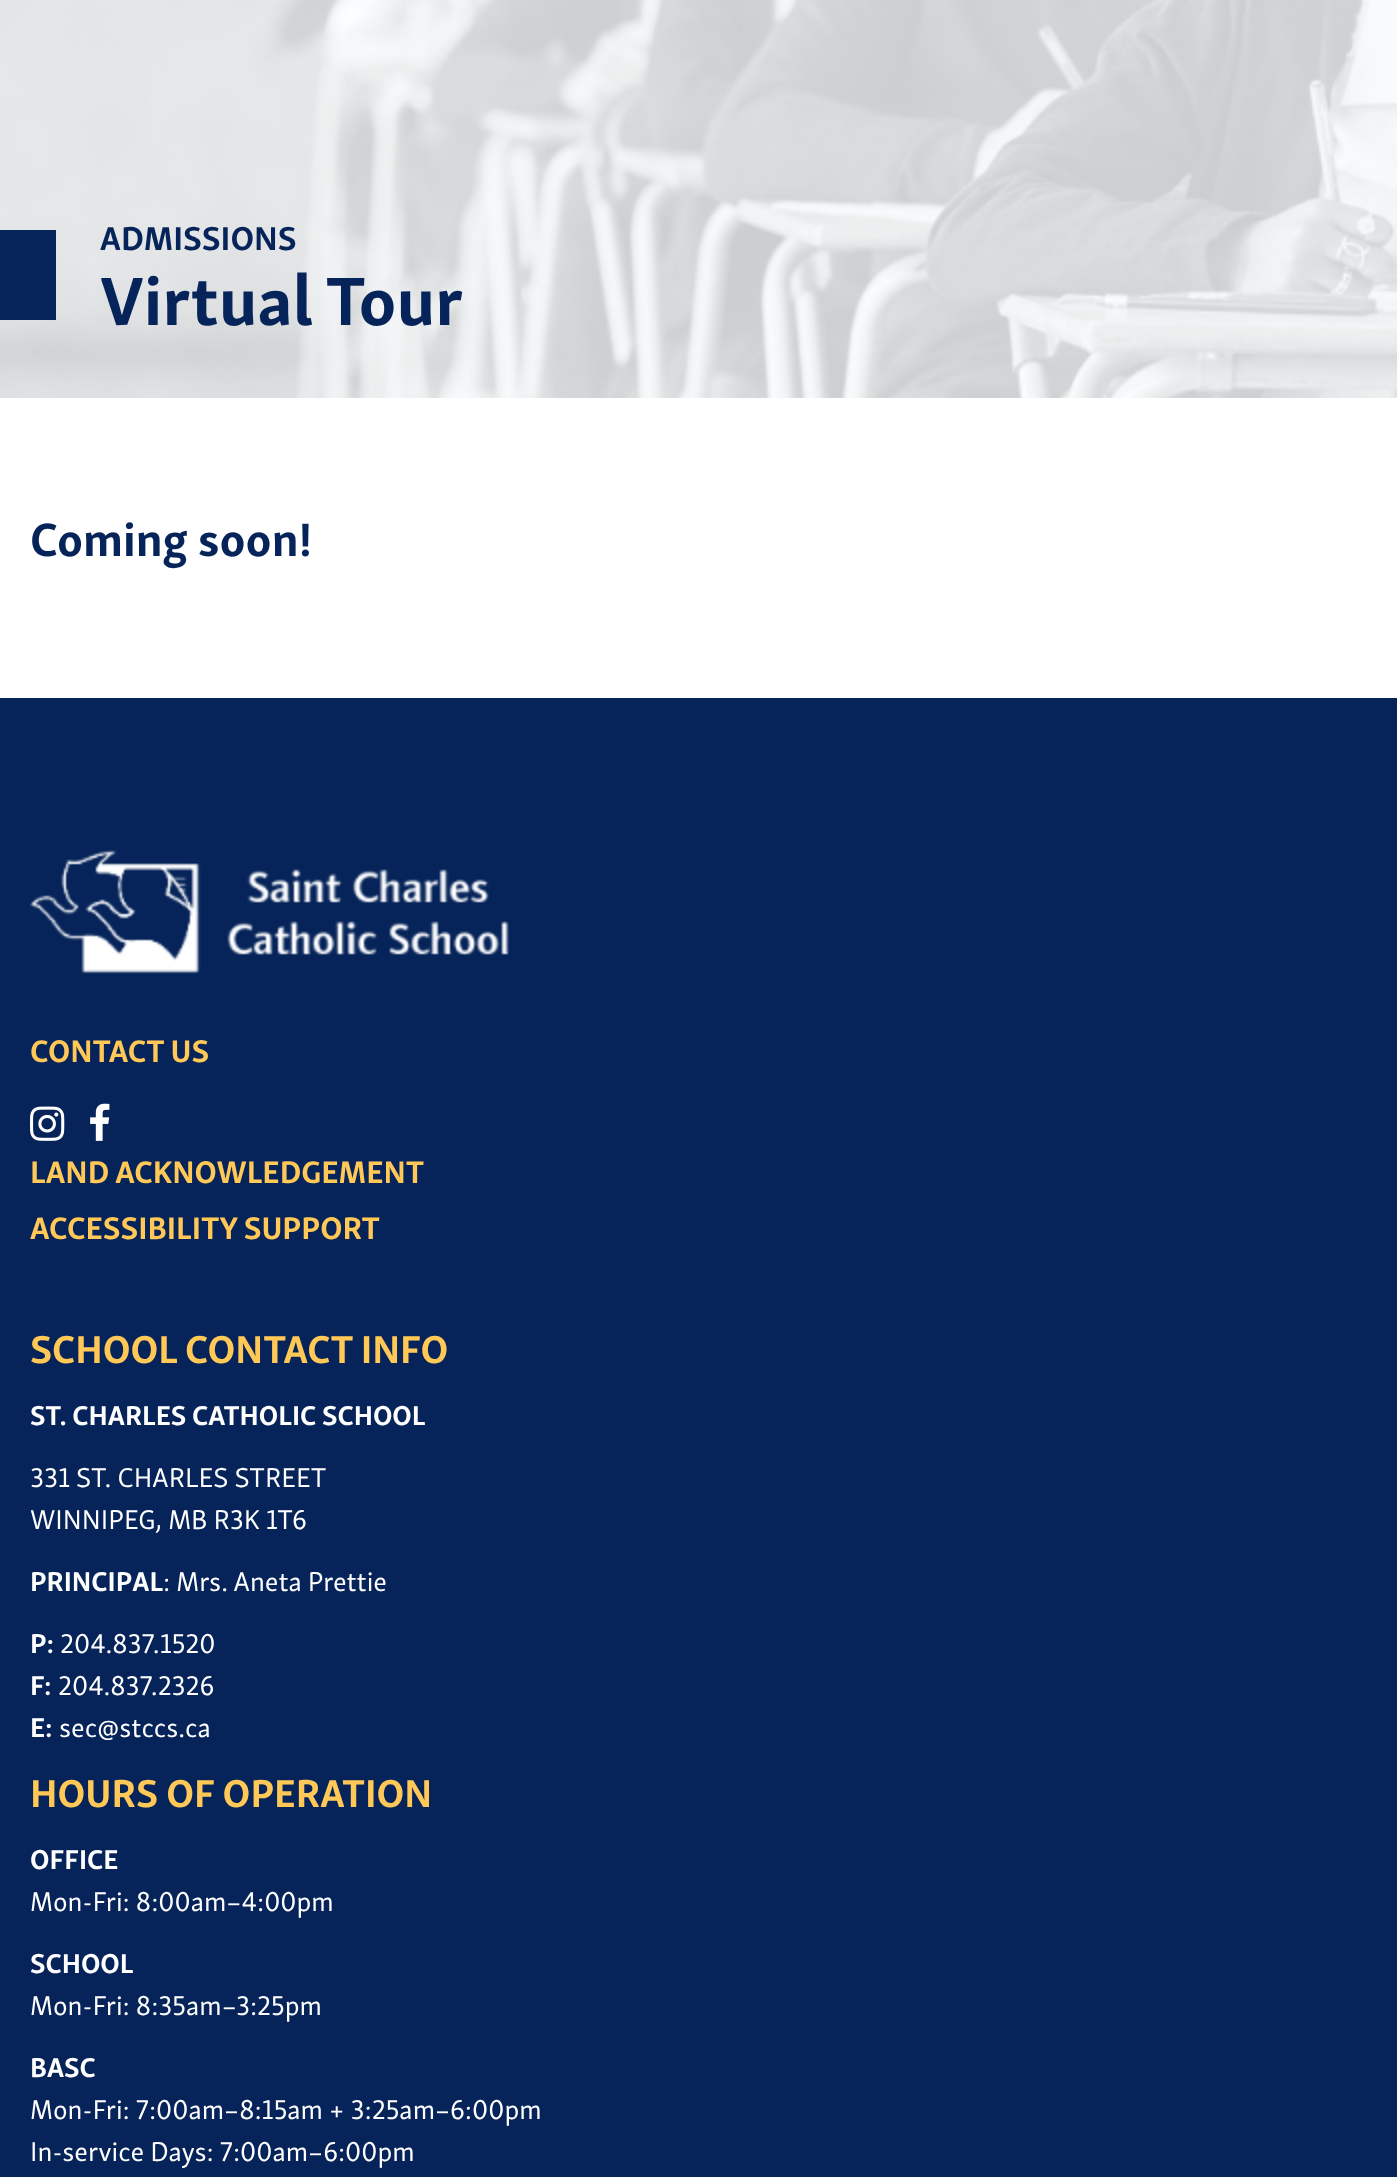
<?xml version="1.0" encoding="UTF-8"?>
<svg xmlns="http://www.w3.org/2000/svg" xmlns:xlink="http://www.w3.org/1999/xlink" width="1397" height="2177">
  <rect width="100%" height="100%" fill="#ffffff" />
  <image x="0" y="0" width="1397" height="398" xlink:href="image1.png" />
  <rect y="230" width="56" height="90" fill="#062459" />
  <rect y="698" width="1397" height="1479" fill="#062459" />
  <image x="30" y="850" width="479" height="124" xlink:href="image2.png" />
  <image x="30" y="1106" width="35" height="35" xlink:href="image3.png" />
  <image x="90" y="1103" width="20" height="38" xlink:href="image4.png" />
  <text x="100" y="250" style="font-family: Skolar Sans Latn; font-size: 34px; font-weight: bold; fill: #062459">ADMISSIONS</text>
  <text x="100" y="325" style="font-family: Skolar Sans Latn; font-size: 70px; font-weight: bold; fill: #062459">Virtual Tour</text>
  <text x="30" y="556" style="font-family: Skolar Sans Latn; font-size: 48px; font-weight: bold; fill: #062459">Coming soon!</text>
  <text x="30" y="1062" style="font-family: Skolar Sans Latn; font-size: 32px; font-weight: bold; fill: #ffc857">CONTACT US</text>
  <text x="30" y="1183" style="font-family: Skolar Sans Latn; font-size: 32px; font-weight: bold; fill: #ffc857">LAND ACKNOWLEDGEMENT</text>
  <text x="30" y="1239" style="font-family: Skolar Sans Latn; font-size: 32px; font-weight: bold; fill: #ffc857">ACCESSIBILITY SUPPORT</text>
  <text x="30" y="1363" style="font-family: Skolar Sans Latn; font-size: 40px; font-weight: bold; fill: #ffc857">SCHOOL CONTACT INFO</text>
  <text x="30" y="1425" style="font-family: Skolar Sans Latn; font-size: 28px; font-weight: bold; fill: #ffffff">ST. CHARLES CATHOLIC SCHOOL</text>
  <text x="30" y="1487" style="font-family: Skolar Sans Latn; font-size: 28px; fill: #ffffff">331 ST. CHARLES STREET</text>
  <text x="30" y="1529" style="font-family: Skolar Sans Latn; font-size: 28px; fill: #ffffff">WINNIPEG, MB R3K 1T6</text>
  <text x="30" y="1591" style="font-family: Skolar Sans Latn; font-size: 28px; font-weight: bold; fill: #ffffff">PRINCIPAL</text>
  <text x="163" y="1591" style="font-family: Skolar Sans Latn; font-size: 28px; fill: #ffffff">: Mrs. Aneta Prettie</text>
  <text x="30" y="1653" style="font-family: Skolar Sans Latn; font-size: 28px; font-weight: bold; fill: #ffffff">P:</text>
  <text x="60" y="1653" style="font-family: Skolar Sans Latn; font-size: 28px; fill: #ffffff">204.837.1520</text>
  <text x="30" y="1695" style="font-family: Skolar Sans Latn; font-size: 28px; font-weight: bold; fill: #ffffff">F:</text>
  <text x="58" y="1695" style="font-family: Skolar Sans Latn; font-size: 28px; fill: #ffffff">204.837.2326</text>
  <text x="30" y="1737" style="font-family: Skolar Sans Latn; font-size: 28px; font-weight: bold; fill: #ffffff">E:</text>
  <text x="59" y="1737" style="font-family: Skolar Sans Latn; font-size: 28px; fill: #ffffff">sec@stccs.ca</text>
  <text x="30" y="1807" style="font-family: Skolar Sans Latn; font-size: 40px; font-weight: bold; fill: #ffc857">HOURS OF OPERATION</text>
  <text x="30" y="1869" style="font-family: Skolar Sans Latn; font-size: 28px; font-weight: bold; fill: #ffffff">OFFICE</text>
  <text x="30" y="1911" style="font-family: Skolar Sans Latn; font-size: 28px; fill: #ffffff">Mon-Fri: 8:00am–4:00pm</text>
  <text x="30" y="1973" style="font-family: Skolar Sans Latn; font-size: 28px; font-weight: bold; fill: #ffffff">SCHOOL</text>
  <text x="30" y="2015" style="font-family: Skolar Sans Latn; font-size: 28px; fill: #ffffff">Mon-Fri: 8:35am–3:25pm</text>
  <text x="30" y="2077" style="font-family: Skolar Sans Latn; font-size: 28px; font-weight: bold; fill: #ffffff">BASC</text>
  <text x="30" y="2119" style="font-family: Skolar Sans Latn; font-size: 28px; fill: #ffffff">Mon-Fri: 7:00am–8:15am + 3:25am–6:00pm</text>
  <text x="30" y="2161" style="font-family: Skolar Sans Latn; font-size: 28px; fill: #ffffff">In-service Days: 7:00am–6:00pm</text>
</svg>
